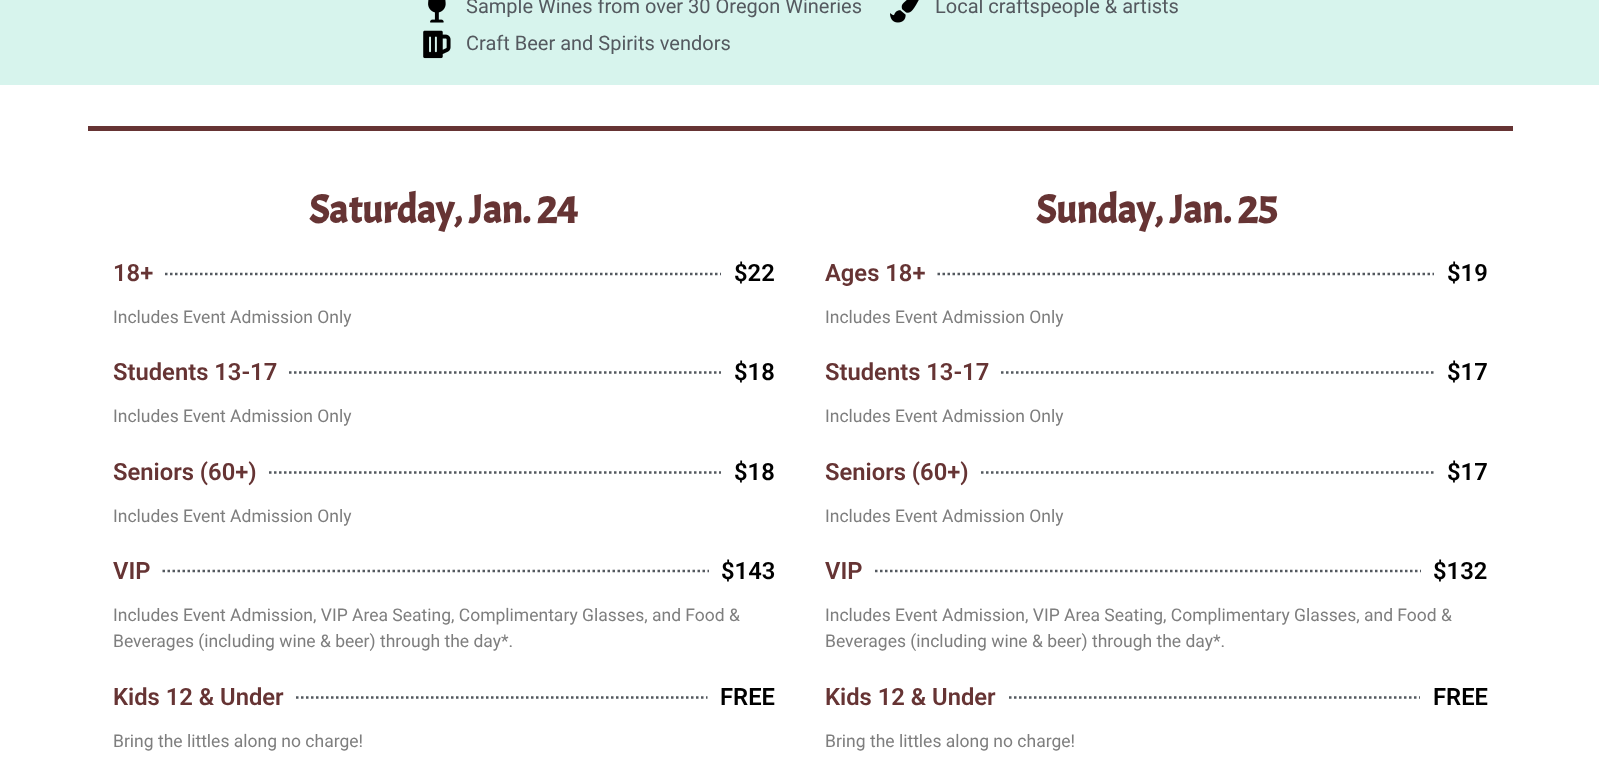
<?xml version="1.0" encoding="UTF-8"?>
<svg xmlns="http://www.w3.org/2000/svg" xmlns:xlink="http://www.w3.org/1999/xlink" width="1599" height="775">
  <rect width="100%" height="100%" fill="#ffffff" />
  <rect width="1599" height="85" fill="#d7f4ed" />
  <image x="428" y="0" width="18" height="23" xlink:href="image1.png" />
  <image x="423" y="30" width="28" height="29" xlink:href="image2.png" />
  <image x="890" y="0" width="29" height="23" xlink:href="image3.png" />
  <rect x="88" y="126" width="1425" height="5" fill="#663434" />
  <path d="M 165 274 h 556" fill="none" stroke="#54595f" stroke-width="2.5" stroke-dasharray="2.5 2.5" />
  <path d="M 289 372.5 h 432" fill="none" stroke="#54595f" stroke-width="2.5" stroke-dasharray="2.5 2.5" />
  <path d="M 269 472.5 h 452" fill="none" stroke="#54595f" stroke-width="2.5" stroke-dasharray="2.5 2.5" />
  <path d="M 162.5 571 h 546.5" fill="none" stroke="#54595f" stroke-width="2.5" stroke-dasharray="2.5 2.5" />
  <path d="M 296 697.5 h 411.5" fill="none" stroke="#54595f" stroke-width="2.5" stroke-dasharray="2.5 2.5" />
  <path d="M 937.5 274 h 496.5" fill="none" stroke="#54595f" stroke-width="2.5" stroke-dasharray="2.5 2.5" />
  <path d="M 1001 372.5 h 433" fill="none" stroke="#54595f" stroke-width="2.5" stroke-dasharray="2.5 2.5" />
  <path d="M 981 472.5 h 453" fill="none" stroke="#54595f" stroke-width="2.5" stroke-dasharray="2.5 2.5" />
  <path d="M 875 571 h 546" fill="none" stroke="#54595f" stroke-width="2.5" stroke-dasharray="2.5 2.5" />
  <path d="M 1009 697.5 h 411" fill="none" stroke="#54595f" stroke-width="2.5" stroke-dasharray="2.5 2.5" />
  <text x="466" y="13" style="font-family: Roboto; font-size: 20px; fill: #54595f">Sample Wines from over 30 Oregon Wineries</text>
  <text x="466" y="50" style="font-family: Roboto; font-size: 20px; fill: #54595f">Craft Beer and Spirits vendors</text>
  <text x="935" y="13" style="font-family: Roboto; font-size: 20px; fill: #54595f">Local craftspeople &amp; artists</text>
  <text x="309" y="223" style="font-family: Acme; font-size: 40px; font-weight: bold; fill: #663434">Saturday, Jan. 24</text>
  <text x="113" y="281" style="font-family: Roboto; font-size: 23.75px; font-weight: 600; fill: #663434">18+</text>
  <text x="734" y="281" style="font-family: Roboto; font-size: 23.75px; font-weight: 600; fill: #000000">$22</text>
  <text x="113" y="323" style="font-family: Roboto; font-size: 17.5px; fill: #7e7e7e">Includes Event Admission Only</text>
  <text x="113" y="380" style="font-family: Roboto; font-size: 23.75px; font-weight: 600; fill: #663434">Students 13-17</text>
  <text x="734" y="380" style="font-family: Roboto; font-size: 23.75px; font-weight: 600; fill: #000000">$18</text>
  <text x="113" y="422" style="font-family: Roboto; font-size: 17.5px; fill: #7e7e7e">Includes Event Admission Only</text>
  <text x="113" y="480" style="font-family: Roboto; font-size: 23.75px; font-weight: 600; fill: #663434">Seniors (60+)</text>
  <text x="734" y="480" style="font-family: Roboto; font-size: 23.75px; font-weight: 600; fill: #000000">$18</text>
  <text x="113" y="522" style="font-family: Roboto; font-size: 17.5px; fill: #7e7e7e">Includes Event Admission Only</text>
  <text x="113" y="579" style="font-family: Roboto; font-size: 23.75px; font-weight: 600; fill: #663434">VIP</text>
  <text x="721" y="579" style="font-family: Roboto; font-size: 23.75px; font-weight: 600; fill: #000000">$143</text>
  <text x="113" y="621" style="font-family: Roboto; font-size: 17.5px; fill: #7e7e7e">Includes Event Admission, VIP Area Seating, Complimentary Glasses, and Food &amp;</text>
  <text x="113" y="647" style="font-family: Roboto; font-size: 17.5px; fill: #7e7e7e">Beverages (including wine &amp; beer) through the day*.</text>
  <text x="113" y="705" style="font-family: Roboto; font-size: 23.75px; font-weight: 600; fill: #663434">Kids 12 &amp; Under</text>
  <text x="720" y="705" style="font-family: Roboto; font-size: 23.75px; font-weight: 600; fill: #000000">FREE</text>
  <text x="113" y="747" style="font-family: Roboto; font-size: 17.5px; fill: #7e7e7e">Bring the littles along no charge!</text>
  <text x="1036" y="223" style="font-family: Acme; font-size: 40px; font-weight: bold; fill: #663434">Sunday, Jan. 25</text>
  <text x="825" y="281" style="font-family: Roboto; font-size: 23.75px; font-weight: 600; fill: #663434">Ages 18+</text>
  <text x="1447" y="281" style="font-family: Roboto; font-size: 23.75px; font-weight: 600; fill: #000000">$19</text>
  <text x="825" y="323" style="font-family: Roboto; font-size: 17.5px; fill: #7e7e7e">Includes Event Admission Only</text>
  <text x="825" y="380" style="font-family: Roboto; font-size: 23.75px; font-weight: 600; fill: #663434">Students 13-17</text>
  <text x="1447" y="380" style="font-family: Roboto; font-size: 23.75px; font-weight: 600; fill: #000000">$17</text>
  <text x="825" y="422" style="font-family: Roboto; font-size: 17.5px; fill: #7e7e7e">Includes Event Admission Only</text>
  <text x="825" y="480" style="font-family: Roboto; font-size: 23.75px; font-weight: 600; fill: #663434">Seniors (60+)</text>
  <text x="1447" y="480" style="font-family: Roboto; font-size: 23.75px; font-weight: 600; fill: #000000">$17</text>
  <text x="825" y="522" style="font-family: Roboto; font-size: 17.5px; fill: #7e7e7e">Includes Event Admission Only</text>
  <text x="825" y="579" style="font-family: Roboto; font-size: 23.75px; font-weight: 600; fill: #663434">VIP</text>
  <text x="1433" y="579" style="font-family: Roboto; font-size: 23.75px; font-weight: 600; fill: #000000">$132</text>
  <text x="825" y="621" style="font-family: Roboto; font-size: 17.5px; fill: #7e7e7e">Includes Event Admission, VIP Area Seating, Complimentary Glasses, and Food &amp;</text>
  <text x="825" y="647" style="font-family: Roboto; font-size: 17.5px; fill: #7e7e7e">Beverages (including wine &amp; beer) through the day*.</text>
  <text x="825" y="705" style="font-family: Roboto; font-size: 23.75px; font-weight: 600; fill: #663434">Kids 12 &amp; Under</text>
  <text x="1433" y="705" style="font-family: Roboto; font-size: 23.75px; font-weight: 600; fill: #000000">FREE</text>
  <text x="825" y="747" style="font-family: Roboto; font-size: 17.5px; fill: #7e7e7e">Bring the littles along no charge!</text>
</svg>
